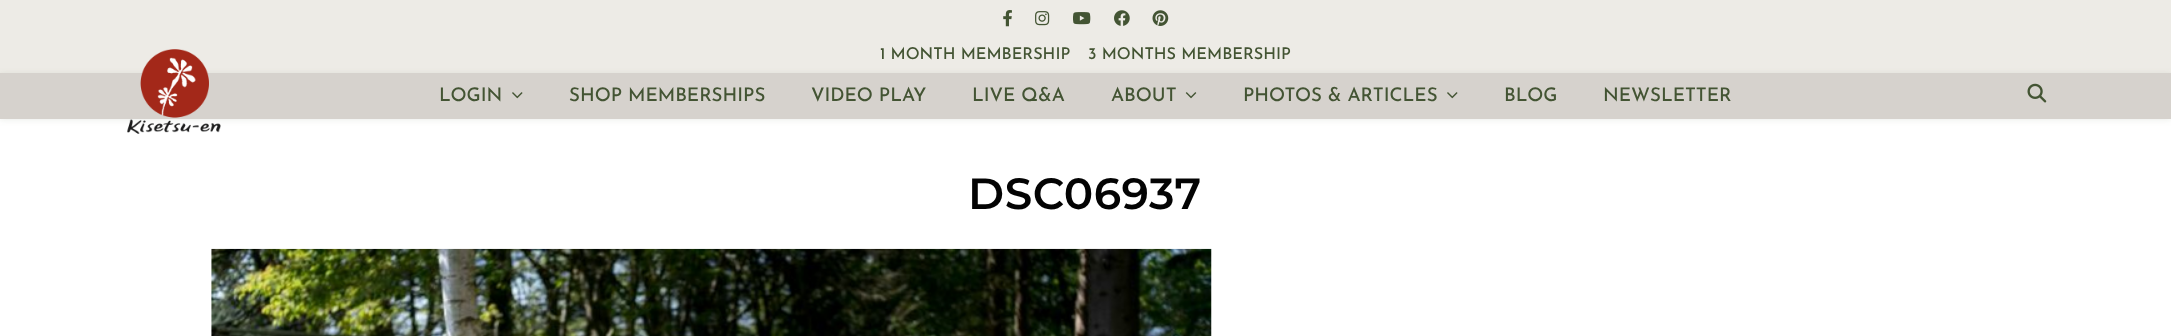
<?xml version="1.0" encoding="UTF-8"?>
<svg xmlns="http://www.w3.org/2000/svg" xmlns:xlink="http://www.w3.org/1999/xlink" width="2171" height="336">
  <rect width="100%" height="100%" fill="#ffffff" />
  <rect width="2171" height="73" fill="#edebe6" />
  <image x="1003" y="10" width="9" height="17" xlink:href="image1.png" />
  <image x="1035" y="11" width="15" height="15" xlink:href="image2.png" />
  <image x="1073" y="12" width="18" height="13" xlink:href="image3.png" />
  <image x="1114" y="10" width="16" height="16" xlink:href="image4.png" />
  <image x="1152" y="10" width="17" height="16" xlink:href="image5.png" />
  <rect y="74" width="2171" height="46" fill="#435433" fill-opacity="0.1" filter="blur(3px)" />
  <rect y="73" width="2171" height="46" fill="#d6d2cd" />
  <image x="127" y="49" width="94" height="85" xlink:href="image6.png" />
  <image x="512" y="92" width="11" height="7" xlink:href="image7.png" />
  <image x="1185" y="92" width="12" height="7" xlink:href="image8.png" />
  <image x="1447" y="92" width="11" height="7" xlink:href="image7.png" />
  <image x="2027" y="83" width="20" height="20" xlink:href="image9.png" />
  <image x="211" y="248" width="1001" height="88" xlink:href="image10.png" />
  <text x="880" y="59" style="font-family: Josefin Sans; font-size: 16.25px; font-weight: 500; fill: #435433">1 MONTH MEMBERSHIP</text>
  <text x="1088" y="59" style="font-family: Josefin Sans; font-size: 16.25px; font-weight: 500; fill: #435433">3 MONTHS MEMBERSHIP</text>
  <text x="439" y="101" style="font-family: Josefin Sans; font-size: 18.75px; font-weight: 500; fill: #435433">LOGIN</text>
  <text x="569" y="101" style="font-family: Josefin Sans; font-size: 18.75px; font-weight: 500; fill: #435433">SHOP MEMBERSHIPS</text>
  <text x="811" y="101" style="font-family: Josefin Sans; font-size: 18.75px; font-weight: 500; fill: #435433">VIDEO PLAY</text>
  <text x="972" y="101" style="font-family: Josefin Sans; font-size: 18.75px; font-weight: 500; fill: #435433">LIVE Q&amp;A</text>
  <text x="1111" y="101" style="font-family: Josefin Sans; font-size: 18.75px; font-weight: 500; fill: #435433">ABOUT</text>
  <text x="1243" y="101" style="font-family: Josefin Sans; font-size: 18.75px; font-weight: 500; fill: #435433">PHOTOS &amp; ARTICLES</text>
  <text x="1504" y="101" style="font-family: Josefin Sans; font-size: 18.75px; font-weight: 500; fill: #435433">BLOG</text>
  <text x="1603" y="101" style="font-family: Josefin Sans; font-size: 18.75px; font-weight: 500; fill: #435433">NEWSLETTER</text>
  <text x="968" y="209" style="font-family: Montserrat; font-size: 43.75px; font-weight: 600; letter-spacing: 0.5px; fill: #030303">DSC06937</text>
</svg>
